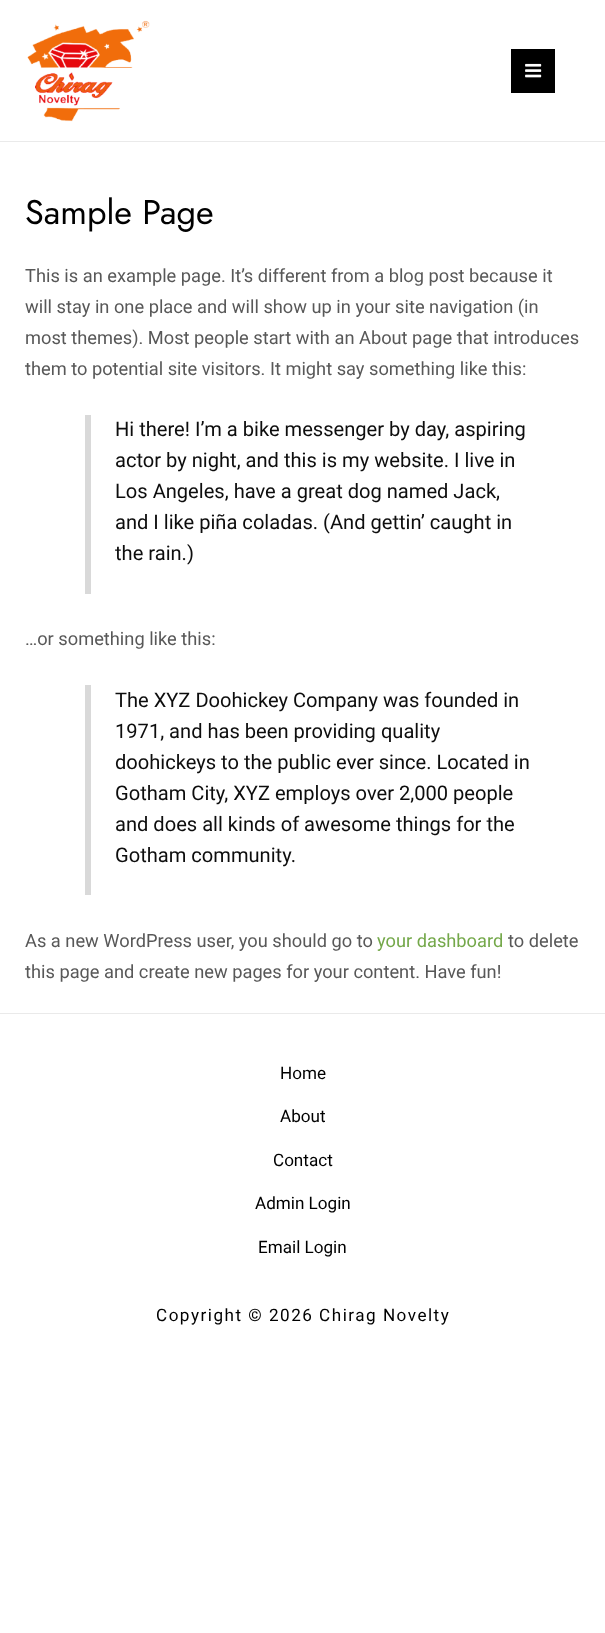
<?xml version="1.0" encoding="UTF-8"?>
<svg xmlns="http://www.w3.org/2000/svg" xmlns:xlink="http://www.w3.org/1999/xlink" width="605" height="1633">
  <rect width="100%" height="100%" fill="#ffffff" />
  <rect y="141" width="605" height="1" fill="#eaeaea" />
  <image x="27" y="20" width="123" height="102" xlink:href="image1.png" />
  <rect x="511" y="49" width="44" height="44" fill="#000000" />
  <image x="525" y="63" width="17" height="15" xlink:href="image2.png" />
  <rect x="85" y="415" width="6" height="179" fill="#d9d9d9" />
  <rect x="85" y="685" width="6" height="210" fill="#d9d9d9" />
  <rect y="1013" width="605" height="1" fill="#eaeaea" />
  <text x="25" y="224" style="font-family: Jost; font-size: 34.25px; fill: #000000">Sample Page</text>
  <text x="25" y="282" style="font-family: Roboto; font-size: 18.25px; fill: #585858">This is an example page. It’s different from a blog post because it</text>
  <text x="25" y="313" style="font-family: Roboto; font-size: 18.25px; fill: #585858">will stay in one place and will show up in your site navigation (in</text>
  <text x="25" y="344" style="font-family: Roboto; font-size: 18.25px; fill: #585858">most themes). Most people start with an About page that introduces</text>
  <text x="25" y="375" style="font-family: Roboto; font-size: 18.25px; fill: #585858">them to potential site visitors. It might say something like this:</text>
  <text x="115" y="436" style="font-family: Roboto; font-size: 20.1px; fill: #0d0d0d">Hi there! I’m a bike messenger by day, aspiring</text>
  <text x="115" y="467" style="font-family: Roboto; font-size: 20.1px; fill: #0d0d0d">actor by night, and this is my website. I live in</text>
  <text x="115" y="498" style="font-family: Roboto; font-size: 20.1px; fill: #0d0d0d">Los Angeles, have a great dog named Jack,</text>
  <text x="115" y="529" style="font-family: Roboto; font-size: 20.1px; fill: #0d0d0d">and I like piña coladas. (And gettin’ caught in</text>
  <text x="115" y="560" style="font-family: Roboto; font-size: 20.1px; fill: #0d0d0d">the rain.)</text>
  <text x="25" y="645" style="font-family: Roboto; font-size: 18.25px; fill: #585858">…or something like this:</text>
  <text x="115" y="707" style="font-family: Roboto; font-size: 20.1px; fill: #0d0d0d">The XYZ Doohickey Company was founded in</text>
  <text x="115" y="738" style="font-family: Roboto; font-size: 20.1px; fill: #0d0d0d">1971, and has been providing quality</text>
  <text x="115" y="769" style="font-family: Roboto; font-size: 20.1px; fill: #0d0d0d">doohickeys to the public ever since. Located in</text>
  <text x="115" y="800" style="font-family: Roboto; font-size: 20.1px; fill: #0d0d0d">Gotham City, XYZ employs over 2,000 people</text>
  <text x="115" y="831" style="font-family: Roboto; font-size: 20.1px; fill: #0d0d0d">and does all kinds of awesome things for the</text>
  <text x="115" y="862" style="font-family: Roboto; font-size: 20.1px; fill: #0d0d0d">Gotham community.</text>
  <text x="25" y="947" style="font-family: Roboto; font-size: 18.25px; fill: #585858">As a new WordPress user, you should go to</text>
  <text x="377" y="947" style="font-family: Roboto; font-size: 18.25px; fill: #74a84a">your dashboard</text>
  <text x="508" y="947" style="font-family: Roboto; font-size: 18.25px; fill: #585858">to delete</text>
  <text x="25" y="978" style="font-family: Roboto; font-size: 18.25px; fill: #585858">this page and create new pages for your content. Have fun!</text>
  <text x="280" y="1079" style="font-family: Roboto; font-size: 17.1px; fill: #000000">Home</text>
  <text x="280" y="1122" style="font-family: Roboto; font-size: 17.1px; fill: #000000">About</text>
  <text x="273" y="1166" style="font-family: Roboto; font-size: 17.1px; fill: #000000">Contact</text>
  <text x="255" y="1209" style="font-family: Roboto; font-size: 17.1px; fill: #000000">Admin Login</text>
  <text x="258" y="1253" style="font-family: Roboto; font-size: 17.1px; fill: #000000">Email Login</text>
  <text x="156" y="1321" style="font-family: Roboto; font-size: 17.1px; letter-spacing: 1.5px; fill: #000000">Copyright © 2026 Chirag Novelty</text>
</svg>
